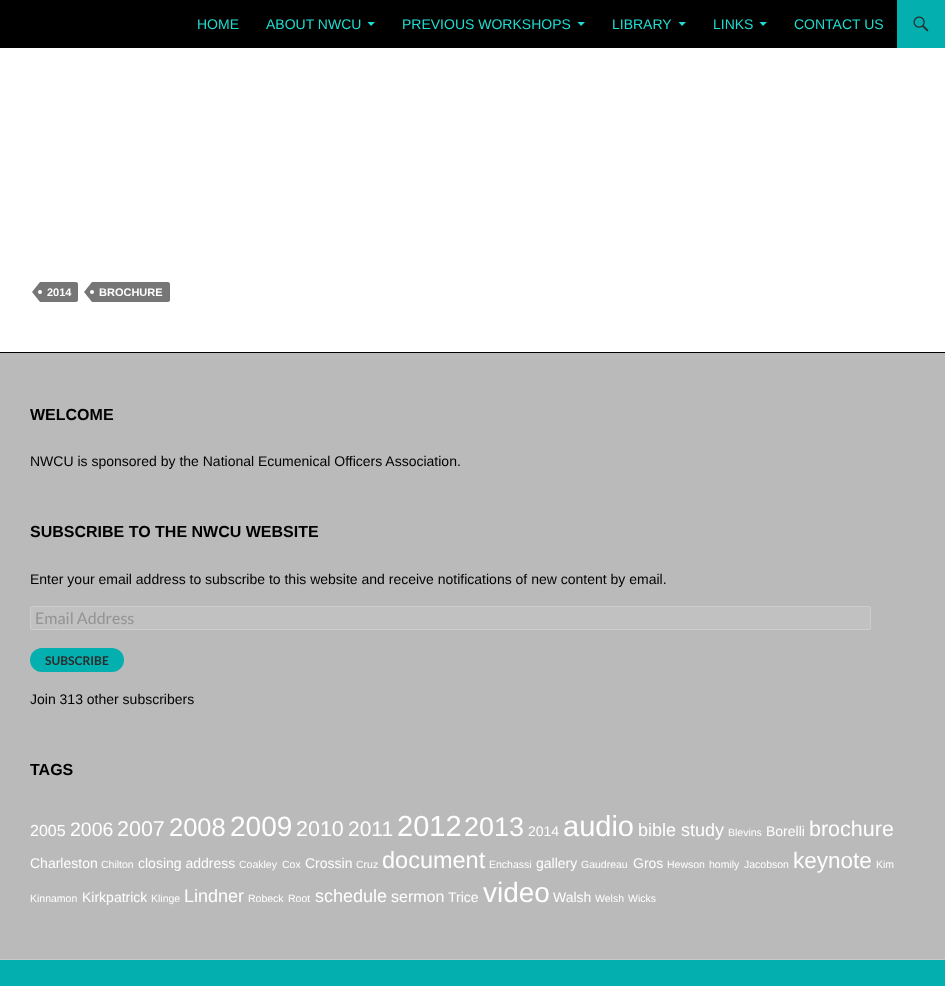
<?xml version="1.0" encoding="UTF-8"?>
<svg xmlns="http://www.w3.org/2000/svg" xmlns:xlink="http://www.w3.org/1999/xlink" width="945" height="986">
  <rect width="100%" height="100%" fill="#ffffff" />
  <rect width="897" height="48" fill="#000000" />
  <path d="M 367.5 22 h 7.5 l -4 4 z" fill="#1fddd1" />
  <path d="M 577.5 22 h 7.5 l -4 4 z" fill="#1fddd1" />
  <path d="M 678.5 22 h 7.5 l -4 4 z" fill="#1fddd1" />
  <path d="M 759.5 22 h 7.5 l -4 4 z" fill="#1fddd1" />
  <rect x="897" width="48" height="48" fill="#03afaf" />
  <image x="913" y="16" width="16" height="16" xlink:href="image1.png" />
  <path d="M 40 282 h 36 c 1 0 2 1 2 2 v 16 c 0 1 -1 2 -2 2 h -36 z" fill="#767676" />
  <path d="M 40 282 v 20 l -8 -10 z" fill="#767676" />
  <circle cx="40" cy="292" r="2" fill="#ffffff" />
  <path d="M 92 282 h 76 c 1 0 2 1 2 2 v 16 c 0 1 -1 2 -2 2 h -76 z" fill="#767676" />
  <path d="M 92 282 v 20 l -8 -10 z" fill="#767676" />
  <circle cx="92" cy="292" r="2" fill="#ffffff" />
  <rect y="353" width="945" height="606" fill="#bababa" />
  <rect y="352" width="945" height="1" fill="#000000" />
  <rect y="959" width="945" height="1" fill="#c8c8c8" />
  <rect x="30.5" y="606.5" width="840" height="23" rx="1.5" fill="#c1c1c1" stroke="#cdcdcd" />
  <rect x="30" y="648" width="94" height="24" rx="12" fill="#03afaf" />
  <rect y="960" width="945" height="26" fill="#03afaf" />
  <text x="197" y="29" style="font-family: Liberation Sans; font-size: 14px; fill: #1fddd1">HOME</text>
  <text x="266" y="29" style="font-family: Liberation Sans; font-size: 14px; fill: #1fddd1">ABOUT NWCU</text>
  <text x="402" y="29" style="font-family: Liberation Sans; font-size: 14px; fill: #1fddd1">PREVIOUS WORKSHOPS</text>
  <text x="612" y="29" style="font-family: Liberation Sans; font-size: 14px; fill: #1fddd1">LIBRARY</text>
  <text x="713" y="29" style="font-family: Liberation Sans; font-size: 14px; fill: #1fddd1">LINKS</text>
  <text x="794" y="29" style="font-family: Liberation Sans; font-size: 14px; fill: #1fddd1">CONTACT US</text>
  <text x="47" y="296" style="font-family: Liberation Sans; font-size: 11px; font-weight: bold; fill: #ffffff">2014</text>
  <text x="99" y="296" style="font-family: Liberation Sans; font-size: 11px; font-weight: bold; fill: #ffffff">BROCHURE</text>
  <text x="30" y="420" style="font-family: Liberation Sans; font-size: 16px; font-weight: bold; fill: #000000">WELCOME</text>
  <text x="30" y="466" style="font-family: Liberation Sans; font-size: 14px; fill: #000000">NWCU is sponsored by the National Ecumenical Officers Association.</text>
  <text x="30" y="537" style="font-family: Liberation Sans; font-size: 16px; font-weight: bold; fill: #000000">SUBSCRIBE TO THE NWCU WEBSITE</text>
  <text x="30" y="584" style="font-family: Liberation Sans; font-size: 14px; fill: #000000">Enter your email address to subscribe to this website and receive notifications of new content by email.</text>
  <text x="35" y="624" style="font-family: Lato; font-size: 16px; fill: #939393">Email Address</text>
  <text x="45" y="665" style="font-family: Lato; font-size: 12px; font-weight: bold; fill: #2b2b2b">SUBSCRIBE</text>
  <text x="30" y="704" style="font-family: Liberation Sans; font-size: 14px; fill: #000000">Join 313 other subscribers</text>
  <text x="30" y="775" style="font-family: Liberation Sans; font-size: 16px; font-weight: bold; fill: #000000">TAGS</text>
  <text x="30" y="836" style="font-family: Liberation Sans; font-size: 16px; fill: #ffffff">2005</text>
  <text x="70" y="836" style="font-family: Liberation Sans; font-size: 19.5px; fill: #ffffff">2006</text>
  <text x="117" y="836" style="font-family: Liberation Sans; font-size: 21.5px; fill: #ffffff">2007</text>
  <text x="169" y="836" style="font-family: Liberation Sans; font-size: 25.5px; fill: #ffffff">2008</text>
  <text x="230" y="836" style="font-family: Liberation Sans; font-size: 28px; fill: #ffffff">2009</text>
  <text x="296" y="836" style="font-family: Liberation Sans; font-size: 21.5px; fill: #ffffff">2010</text>
  <text x="348" y="836" style="font-family: Liberation Sans; font-size: 21px; fill: #ffffff">2011</text>
  <text x="397" y="836" style="font-family: Liberation Sans; font-size: 29px; fill: #ffffff">2012</text>
  <text x="464" y="836" style="font-family: Liberation Sans; font-size: 27px; fill: #ffffff">2013</text>
  <text x="528" y="836" style="font-family: Liberation Sans; font-size: 14px; fill: #ffffff">2014</text>
  <text x="563" y="836" style="font-family: Liberation Sans; font-size: 29px; fill: #ffffff">audio</text>
  <text x="638" y="836" style="font-family: Liberation Sans; font-size: 18px; fill: #ffffff">bible study</text>
  <text x="728" y="836" style="font-family: Liberation Sans; font-size: 10.5px; fill: #ffffff">Blevins</text>
  <text x="766" y="836" style="font-family: Liberation Sans; font-size: 14px; fill: #ffffff">Borelli</text>
  <text x="809" y="836" style="font-family: Liberation Sans; font-size: 21.5px; fill: #ffffff">brochure</text>
  <text x="30" y="868" style="font-family: Liberation Sans; font-size: 14px; fill: #ffffff">Charleston</text>
  <text x="101" y="868" style="font-family: Liberation Sans; font-size: 10.5px; fill: #ffffff">Chilton</text>
  <text x="138" y="868" style="font-family: Liberation Sans; font-size: 14px; fill: #ffffff">closing address</text>
  <text x="239" y="868" style="font-family: Liberation Sans; font-size: 10.5px; fill: #ffffff">Coakley</text>
  <text x="282" y="868" style="font-family: Liberation Sans; font-size: 10.5px; fill: #ffffff">Cox</text>
  <text x="305" y="868" style="font-family: Liberation Sans; font-size: 14px; fill: #ffffff">Crossin</text>
  <text x="356" y="868" style="font-family: Liberation Sans; font-size: 10.5px; fill: #ffffff">Cruz</text>
  <text x="382" y="868" style="font-family: Liberation Sans; font-size: 23.5px; fill: #ffffff">document</text>
  <text x="489" y="868" style="font-family: Liberation Sans; font-size: 10.5px; fill: #ffffff">Enchassi</text>
  <text x="536" y="868" style="font-family: Liberation Sans; font-size: 14px; fill: #ffffff">gallery</text>
  <text x="581" y="868" style="font-family: Liberation Sans; font-size: 10.5px; fill: #ffffff">Gaudreau</text>
  <text x="633" y="868" style="font-family: Liberation Sans; font-size: 14px; fill: #ffffff">Gros</text>
  <text x="667" y="868" style="font-family: Liberation Sans; font-size: 10.5px; fill: #ffffff">Hewson</text>
  <text x="709" y="868" style="font-family: Liberation Sans; font-size: 10.5px; fill: #ffffff">homily</text>
  <text x="744" y="868" style="font-family: Liberation Sans; font-size: 10.5px; fill: #ffffff">Jacobson</text>
  <text x="793" y="868" style="font-family: Liberation Sans; font-size: 22.5px; fill: #ffffff">keynote</text>
  <text x="876" y="868" style="font-family: Liberation Sans; font-size: 10.5px; fill: #ffffff">Kim</text>
  <text x="30" y="902" style="font-family: Liberation Sans; font-size: 10.5px; fill: #ffffff">Kinnamon</text>
  <text x="82" y="902" style="font-family: Liberation Sans; font-size: 14px; fill: #ffffff">Kirkpatrick</text>
  <text x="151" y="902" style="font-family: Liberation Sans; font-size: 10.5px; fill: #ffffff">Klinge</text>
  <text x="184" y="902" style="font-family: Liberation Sans; font-size: 18px; fill: #ffffff">Lindner</text>
  <text x="248" y="902" style="font-family: Liberation Sans; font-size: 10.5px; fill: #ffffff">Robeck</text>
  <text x="288" y="902" style="font-family: Liberation Sans; font-size: 10.5px; fill: #ffffff">Root</text>
  <text x="315" y="902" style="font-family: Liberation Sans; font-size: 18px; fill: #ffffff">schedule</text>
  <text x="391" y="902" style="font-family: Liberation Sans; font-size: 16px; fill: #ffffff">sermon</text>
  <text x="448" y="902" style="font-family: Liberation Sans; font-size: 14px; fill: #ffffff">Trice</text>
  <text x="483" y="902" style="font-family: Liberation Sans; font-size: 28px; fill: #ffffff">video</text>
  <text x="553" y="902" style="font-family: Liberation Sans; font-size: 14px; fill: #ffffff">Walsh</text>
  <text x="595" y="902" style="font-family: Liberation Sans; font-size: 10.5px; fill: #ffffff">Welsh</text>
  <text x="628" y="902" style="font-family: Liberation Sans; font-size: 10.5px; fill: #ffffff">Wicks</text>
</svg>
